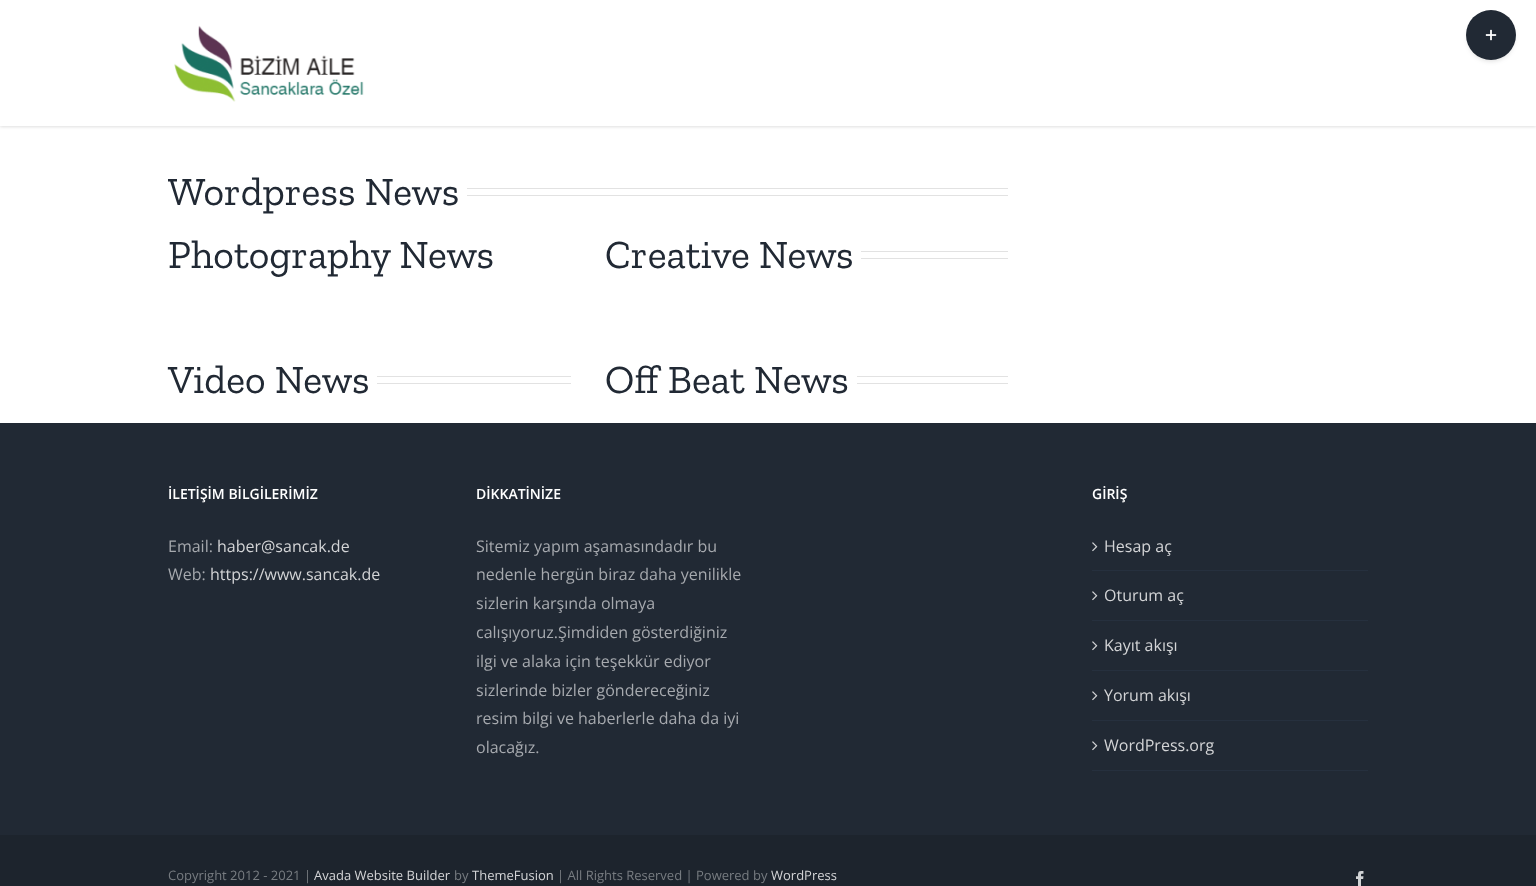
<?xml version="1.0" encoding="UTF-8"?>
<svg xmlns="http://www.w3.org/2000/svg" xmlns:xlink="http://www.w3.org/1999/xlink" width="1536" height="886">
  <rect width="100%" height="100%" fill="#ffffff" />
  <rect y="1" width="1536" height="126" fill="#000000" fill-opacity="0.12" filter="blur(1.5px)" />
  <rect width="1536" height="126" fill="#ffffff" />
  <image x="174" y="25" width="190" height="77" xlink:href="image1.png" />
  <rect x="1468" y="15" width="46" height="46" rx="23" fill="#000000" fill-opacity="0.14" filter="blur(2.5px)" />
  <circle cx="1491" cy="35" r="25" fill="#212934" />
  <image x="1485" y="29" width="12" height="12" xlink:href="image2.png" />
  <rect x="467" y="188" width="541" height="1" fill="#e2e2e2" />
  <rect x="467" y="195" width="541" height="1" fill="#e2e2e2" />
  <rect x="861" y="251" width="147" height="1" fill="#e2e2e2" />
  <rect x="861" y="258" width="147" height="1" fill="#e2e2e2" />
  <rect x="377" y="376" width="194" height="1" fill="#e2e2e2" />
  <rect x="377" y="383" width="194" height="1" fill="#e2e2e2" />
  <rect x="857" y="376" width="151" height="1" fill="#e2e2e2" />
  <rect x="857" y="383" width="151" height="1" fill="#e2e2e2" />
  <rect y="423" width="1536" height="412" fill="#212934" />
  <rect x="1092" y="570" width="276" height="1" fill="#26303e" />
  <image x="1092" y="542" width="6" height="10" xlink:href="image3.png" />
  <rect x="1092" y="620" width="276" height="1" fill="#26303e" />
  <image x="1092" y="591" width="6" height="10" xlink:href="image3.png" />
  <rect x="1092" y="670" width="276" height="1" fill="#26303e" />
  <image x="1092" y="641" width="6" height="10" xlink:href="image3.png" />
  <rect x="1092" y="720" width="276" height="1" fill="#26303e" />
  <image x="1092" y="691" width="6" height="10" xlink:href="image3.png" />
  <rect x="1092" y="770" width="276" height="1" fill="#26303e" />
  <image x="1092" y="741" width="6" height="10" xlink:href="image3.png" />
  <rect y="835" width="1536" height="51" fill="#1d242d" />
  <image x="1356" y="871" width="8" height="15" xlink:href="image4.png" />
  <text x="168" y="205" style="font-family: Zilla Slab; font-size: 40px; fill: #212934">Wordpress News</text>
  <text x="168" y="268" style="font-family: Zilla Slab; font-size: 40px; fill: #212934">Photography News</text>
  <text x="605" y="268" style="font-family: Zilla Slab; font-size: 40px; fill: #212934">Creative News</text>
  <text x="168" y="393" style="font-family: Zilla Slab; font-size: 40px; fill: #212934">Video News</text>
  <text x="605" y="393" style="font-family: Zilla Slab; font-size: 40px; fill: #212934">Off Beat News</text>
  <text x="168" y="499" style="font-family: Open Sans; font-size: 14px; font-weight: 600; fill: #ffffff">İLETİŞİM BİLGİLERİMİZ</text>
  <text x="168" y="552" style="font-family: Open Sans; font-size: 16px; fill: #a6a9ae">Email:</text>
  <text x="217" y="552" style="font-family: Open Sans; font-size: 16px; fill: #d3d4d6">haber@sancak.de</text>
  <text x="168" y="580" style="font-family: Open Sans; font-size: 16px; fill: #a6a9ae">Web:</text>
  <text x="210" y="580" style="font-family: Open Sans; font-size: 16px; fill: #d3d4d6">https://www.sancak.de</text>
  <text x="476" y="499" style="font-family: Open Sans; font-size: 14px; font-weight: 600; fill: #ffffff">DİKKATİNİZE</text>
  <text x="476" y="552" style="font-family: Open Sans; font-size: 16px; fill: #a6a9ae">Sitemiz yapım aşamasındadır bu</text>
  <text x="476" y="580" style="font-family: Open Sans; font-size: 16px; fill: #a6a9ae">nedenle hergün biraz daha yenilikle</text>
  <text x="476" y="609" style="font-family: Open Sans; font-size: 16px; fill: #a6a9ae">sizlerin karşında olmaya</text>
  <text x="476" y="638" style="font-family: Open Sans; font-size: 16px; fill: #a6a9ae">calışıyoruz.Şimdiden gösterdiğiniz</text>
  <text x="476" y="667" style="font-family: Open Sans; font-size: 16px; fill: #a6a9ae">ilgi ve alaka için teşekkür ediyor</text>
  <text x="476" y="696" style="font-family: Open Sans; font-size: 16px; fill: #a6a9ae">sizlerinde bizler göndereceğiniz</text>
  <text x="476" y="724" style="font-family: Open Sans; font-size: 16px; fill: #a6a9ae">resim bilgi ve haberlerle daha da iyi</text>
  <text x="476" y="753" style="font-family: Open Sans; font-size: 16px; fill: #a6a9ae">olacağız.</text>
  <text x="1092" y="499" style="font-family: Open Sans; font-size: 14px; font-weight: 600; fill: #ffffff">GİRİŞ</text>
  <text x="1104" y="552" style="font-family: Open Sans; font-size: 16px; fill: #d3d4d6">Hesap aç</text>
  <text x="1104" y="601" style="font-family: Open Sans; font-size: 16px; fill: #d3d4d6">Oturum aç</text>
  <text x="1104" y="651" style="font-family: Open Sans; font-size: 16px; fill: #d3d4d6">Kayıt akışı</text>
  <text x="1104" y="701" style="font-family: Open Sans; font-size: 16px; fill: #d3d4d6">Yorum akışı</text>
  <text x="1104" y="751" style="font-family: Open Sans; font-size: 16px; fill: #d3d4d6">WordPress.org</text>
  <text x="168" y="880" style="font-family: Open Sans; font-size: 13px; fill: #777c81">Copyright 2012 - 2021 |</text>
  <text x="314" y="880" style="font-family: Open Sans; font-size: 13px; fill: #d3d4d6">Avada Website Builder</text>
  <text x="454" y="880" style="font-family: Open Sans; font-size: 13px; fill: #777c81">by</text>
  <text x="472" y="880" style="font-family: Open Sans; font-size: 13px; fill: #d3d4d6">ThemeFusion</text>
  <text x="557" y="880" style="font-family: Open Sans; font-size: 13px; fill: #777c81">| All Rights Reserved | Powered by</text>
  <text x="771" y="880" style="font-family: Open Sans; font-size: 13px; fill: #d3d4d6">WordPress</text>
</svg>
